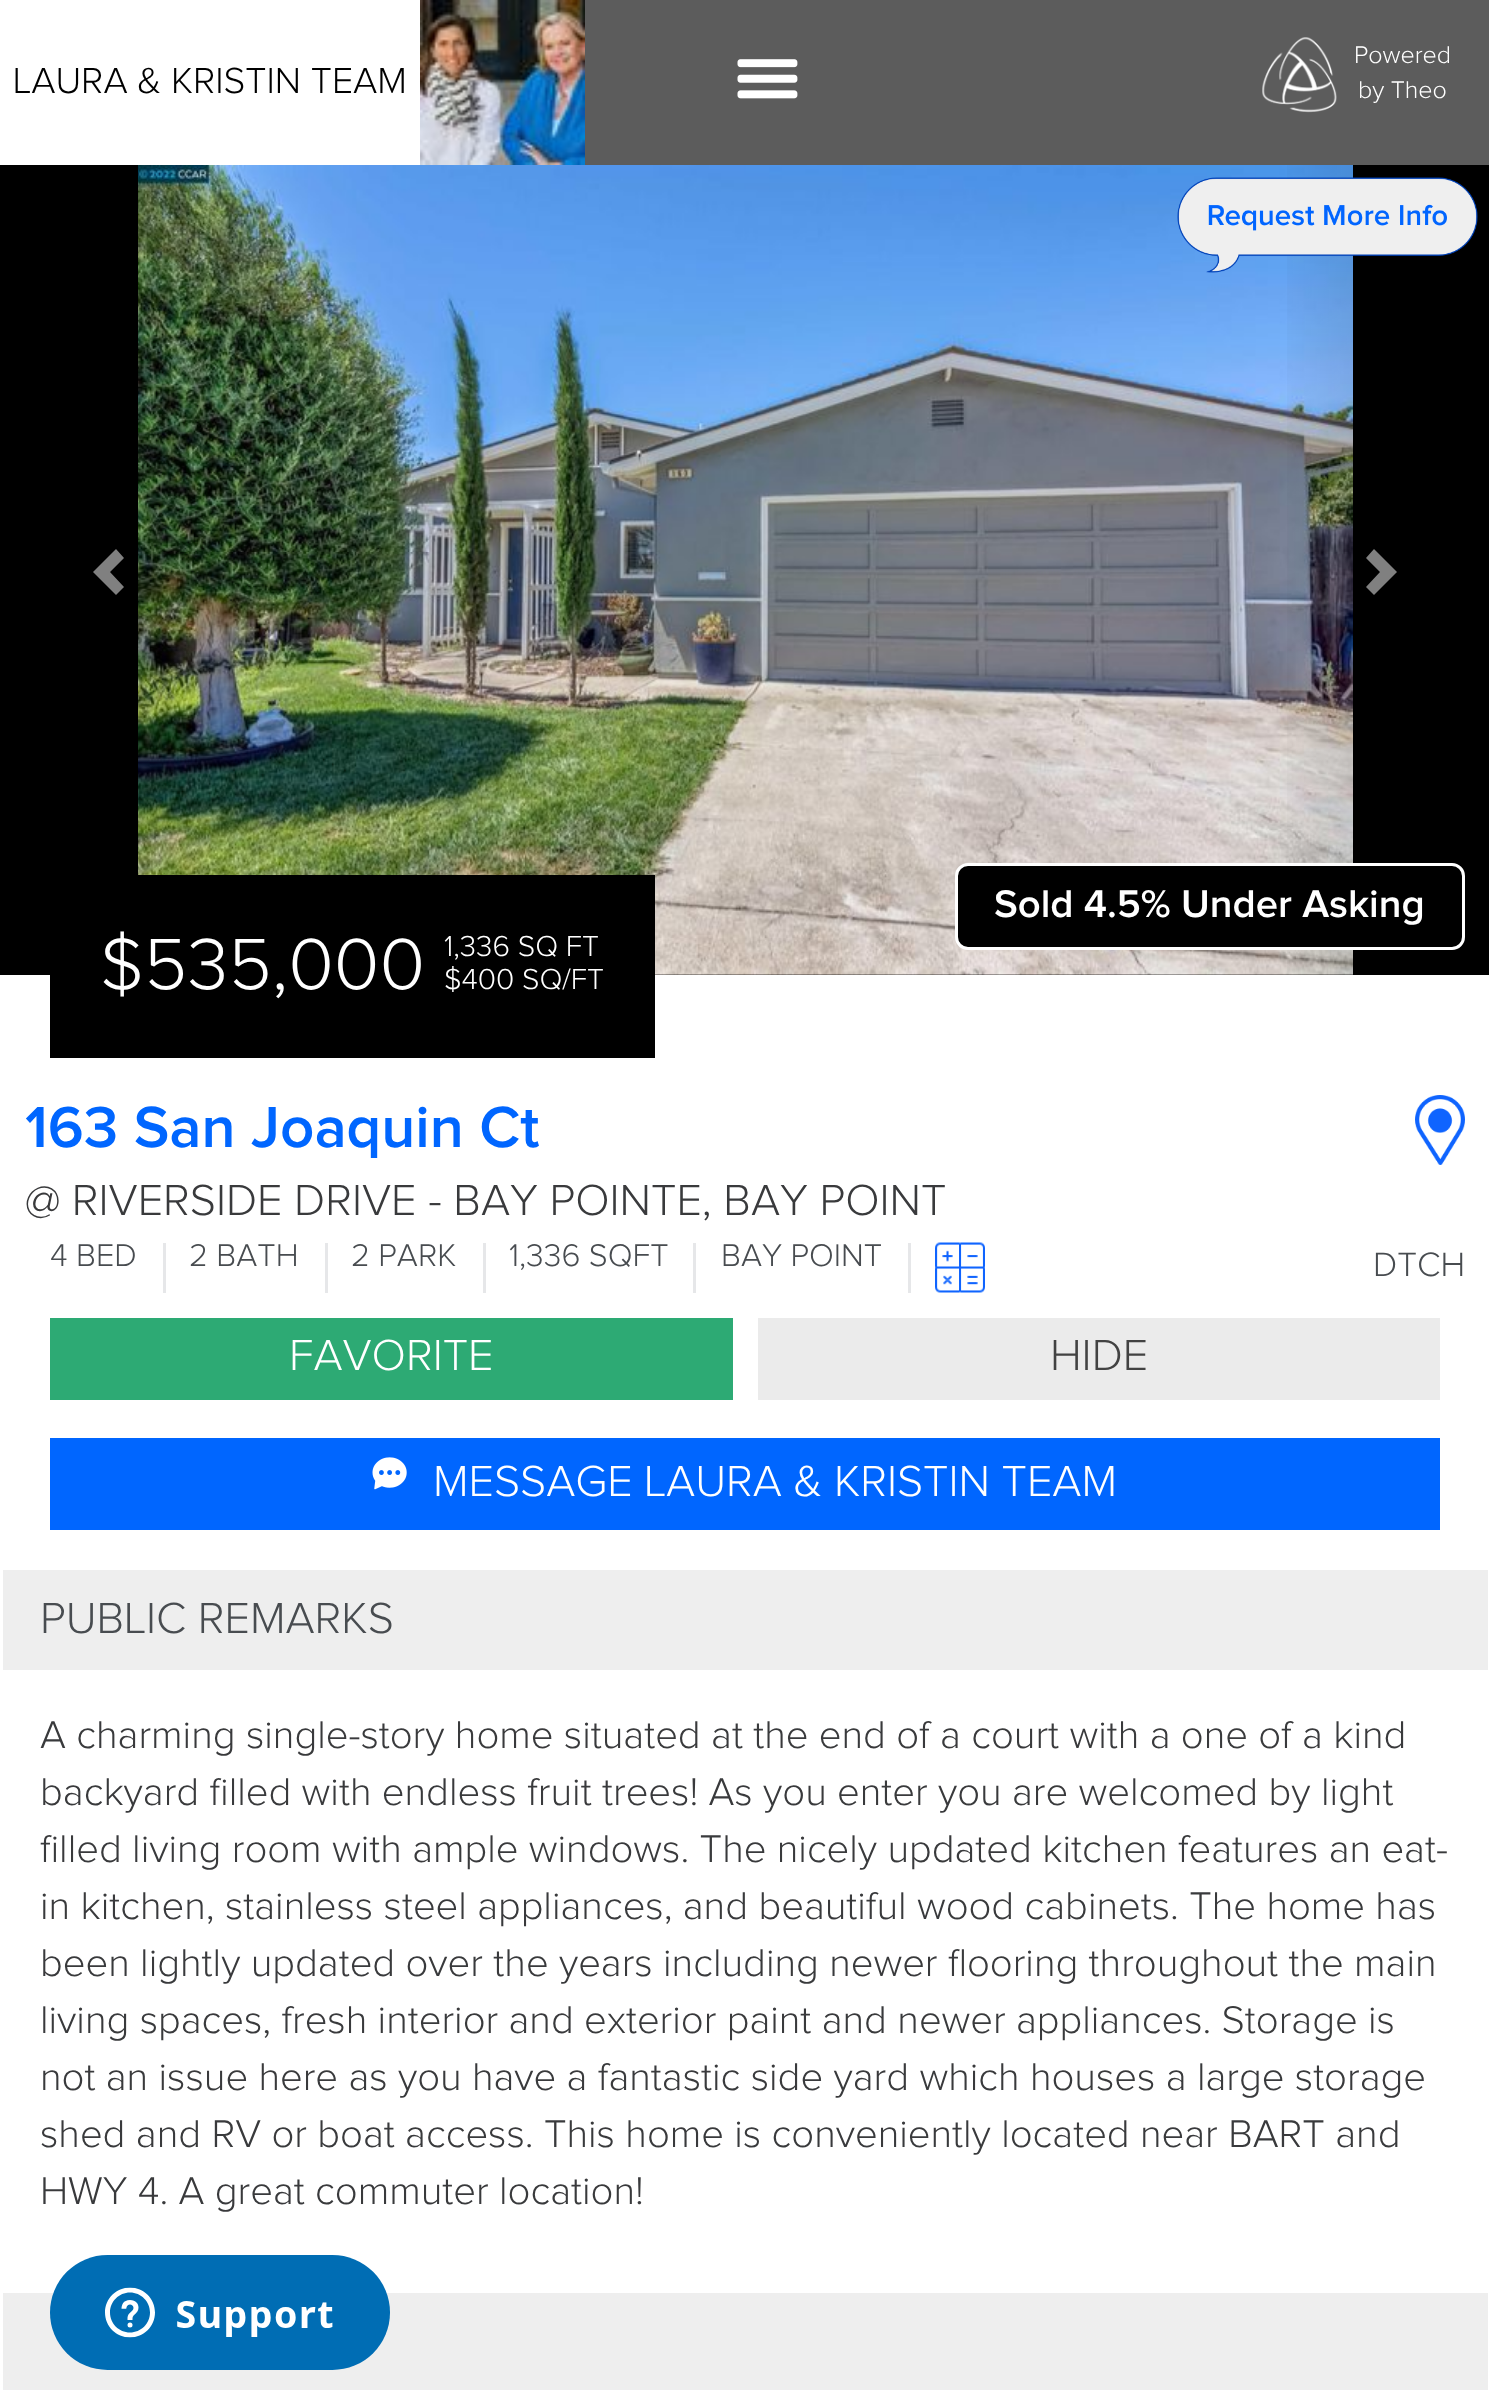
<?xml version="1.0" encoding="UTF-8"?>
<svg xmlns="http://www.w3.org/2000/svg" xmlns:xlink="http://www.w3.org/1999/xlink" width="1489" height="2403">
  <defs>
    <linearGradient id="g1" gradientUnits="userSpaceOnUse" x1="0" y1="570" x2="223" y2="570"><stop offset="0" stop-color="#000000" stop-opacity="0.25" /><stop offset="1" stop-color="#000000" stop-opacity="0" /></linearGradient>
    <linearGradient id="g2" gradientUnits="userSpaceOnUse" x1="1268" y1="570" x2="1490" y2="570"><stop offset="0" stop-color="#000000" stop-opacity="0" /><stop offset="1" stop-color="#000000" stop-opacity="0.25" /></linearGradient>
  </defs>
  <rect width="100%" height="100%" fill="#ffffff" />
  <rect x="585" width="904" height="165" fill="#5c5c5c" />
  <image x="420" y="0" width="165" height="165" xlink:href="image1.png" />
  <image x="737" y="59" width="61" height="40" xlink:href="image2.png" />
  <image x="1262" y="37" width="75" height="76" xlink:href="image3.png" />
  <rect y="165" width="1489" height="810" fill="#000000" />
  <image x="138" y="165" width="1215" height="810" xlink:href="image4.png" />
  <rect x="138" y="165" width="66" height="810" fill="url(#g1)" />
  <path d="M 124 558 l -14 14 l 14 15 l -8 8 l -23 -23 l 23 -23 z" fill="#808080" />
  <rect x="1287" y="165" width="66" height="810" fill="url(#g2)" />
  <path d="M 1397 572 l -23 23 l -8 -8 l 14 -15 l -14 -14 l 8 -9 z" fill="#808080" />
  <image x="1177" y="177" width="301" height="96" xlink:href="image5.png" />
  <rect x="956.5" y="864.5" width="507" height="84" rx="11.5" fill="#000000" stroke="#ffffff" stroke-width="3" />
  <rect x="50" y="875" width="605" height="183" fill="#000000" />
  <image x="1415" y="1095" width="50" height="70" xlink:href="image6.png" />
  <rect x="163" y="1243" width="3" height="50" fill="#e6e7e9" />
  <rect x="325" y="1243" width="3" height="50" fill="#e6e7e9" />
  <rect x="483" y="1243" width="3" height="50" fill="#e6e7e9" />
  <rect x="693" y="1243" width="3" height="50" fill="#e6e7e9" />
  <rect x="908" y="1243" width="3" height="50" fill="#e6e7e9" />
  <image x="935" y="1242" width="50" height="51" xlink:href="image7.png" />
  <rect x="50" y="1318" width="683" height="82" fill="#2daa74" />
  <rect x="758" y="1318" width="682" height="82" fill="#ebebeb" />
  <rect x="50" y="1438" width="1390" height="92" fill="#0066ff" />
  <image x="372" y="1457" width="35" height="33" xlink:href="image8.png" />
  <rect x="3" y="1570" width="1485" height="100" fill="#eeeeee" />
  <rect x="3" y="2293" width="1485" height="97" fill="#eeeeee" />
  <image x="50" y="2255" width="340" height="115" xlink:href="image9.png" />
  <text x="13" y="93" style="font-family: Proxima Nova; font-size: 37.5px; font-weight: 300; fill: #000000">LAURA &amp; KRISTIN TEAM</text>
  <text x="1354" y="63" style="font-family: Proxima Nova; font-size: 25px; font-weight: 300; fill: #ffffff">Powered</text>
  <text x="1358" y="98" style="font-family: Proxima Nova; font-size: 25px; font-weight: 300; fill: #ffffff">by Theo</text>
  <text x="994" y="917" style="font-family: Proxima Nova; font-size: 40px; font-weight: 600; fill: #ffffff">Sold 4.5% Under Asking</text>
  <text x="100" y="989" style="font-family: Proxima Nova; font-size: 75px; font-weight: 300; fill: #ffffff">$535,000</text>
  <text x="444" y="956" style="font-family: Proxima Nova; font-size: 30px; font-weight: 300; fill: #ffffff">1,336 SQ FT</text>
  <text x="444" y="989" style="font-family: Proxima Nova; font-size: 30px; font-weight: 300; fill: #ffffff">$400 SQ/FT</text>
  <text x="25" y="1147" style="font-family: Proxima Nova; font-size: 60px; font-weight: 600; fill: #0066ff">163 San Joaquin Ct</text>
  <text x="25" y="1215" style="font-family: Proxima Nova; font-size: 45px; font-weight: 300; fill: #393a3c">@ RIVERSIDE DRIVE - BAY POINTE, BAY POINT</text>
  <text x="50" y="1266" style="font-family: Proxima Nova; font-size: 32.5px; font-weight: 300; fill: #484c50">4 BED</text>
  <text x="189" y="1266" style="font-family: Proxima Nova; font-size: 32.5px; font-weight: 300; fill: #484c50">2 BATH</text>
  <text x="351" y="1266" style="font-family: Proxima Nova; font-size: 32.5px; font-weight: 300; fill: #484c50">2 PARK</text>
  <text x="509" y="1266" style="font-family: Proxima Nova; font-size: 32.5px; font-weight: 300; fill: #484c50">1,336 SQFT</text>
  <text x="721" y="1266" style="font-family: Proxima Nova; font-size: 32.5px; font-weight: 300; fill: #484c50">BAY POINT</text>
  <text x="1373" y="1276" style="font-family: Proxima Nova; font-size: 35px; font-weight: 300; fill: #484c50">DTCH</text>
  <text x="289" y="1370" style="font-family: Proxima Nova; font-size: 45px; font-weight: 300; fill: #ffffff">FAVORITE</text>
  <text x="1050" y="1370" style="font-family: Proxima Nova; font-size: 45px; font-weight: 300; fill: #424242">HIDE</text>
  <text x="433" y="1496" style="font-family: Proxima Nova; font-size: 45px; font-weight: 300; fill: #ffffff">MESSAGE LAURA &amp; KRISTIN TEAM</text>
  <text x="40" y="1633" style="font-family: Proxima Nova; font-size: 45px; font-weight: 300; fill: #484c50">PUBLIC REMARKS</text>
  <text x="40" y="1748" style="font-family: Proxima Nova; font-size: 40px; font-weight: 300; fill: #393a3c">A charming single-story home situated at the end of a court with a one of a kind</text>
  <text x="40" y="1805" style="font-family: Proxima Nova; font-size: 40px; font-weight: 300; fill: #393a3c">backyard filled with endless fruit trees! As you enter you are welcomed by light</text>
  <text x="40" y="1862" style="font-family: Proxima Nova; font-size: 40px; font-weight: 300; fill: #393a3c">filled living room with ample windows. The nicely updated kitchen features an eat-</text>
  <text x="40" y="1919" style="font-family: Proxima Nova; font-size: 40px; font-weight: 300; fill: #393a3c">in kitchen, stainless steel appliances, and beautiful wood cabinets. The home has</text>
  <text x="40" y="1976" style="font-family: Proxima Nova; font-size: 40px; font-weight: 300; fill: #393a3c">been lightly updated over the years including newer flooring throughout the main</text>
  <text x="40" y="2033" style="font-family: Proxima Nova; font-size: 40px; font-weight: 300; fill: #393a3c">living spaces, fresh interior and exterior paint and newer appliances. Storage is</text>
  <text x="40" y="2090" style="font-family: Proxima Nova; font-size: 40px; font-weight: 300; fill: #393a3c">not an issue here as you have a fantastic side yard which houses a large storage</text>
  <text x="40" y="2147" style="font-family: Proxima Nova; font-size: 40px; font-weight: 300; fill: #393a3c">shed and RV or boat access. This home is conveniently located near BART and</text>
  <text x="40" y="2204" style="font-family: Proxima Nova; font-size: 40px; font-weight: 300; fill: #393a3c">HWY 4. A great commuter location!</text>
</svg>
